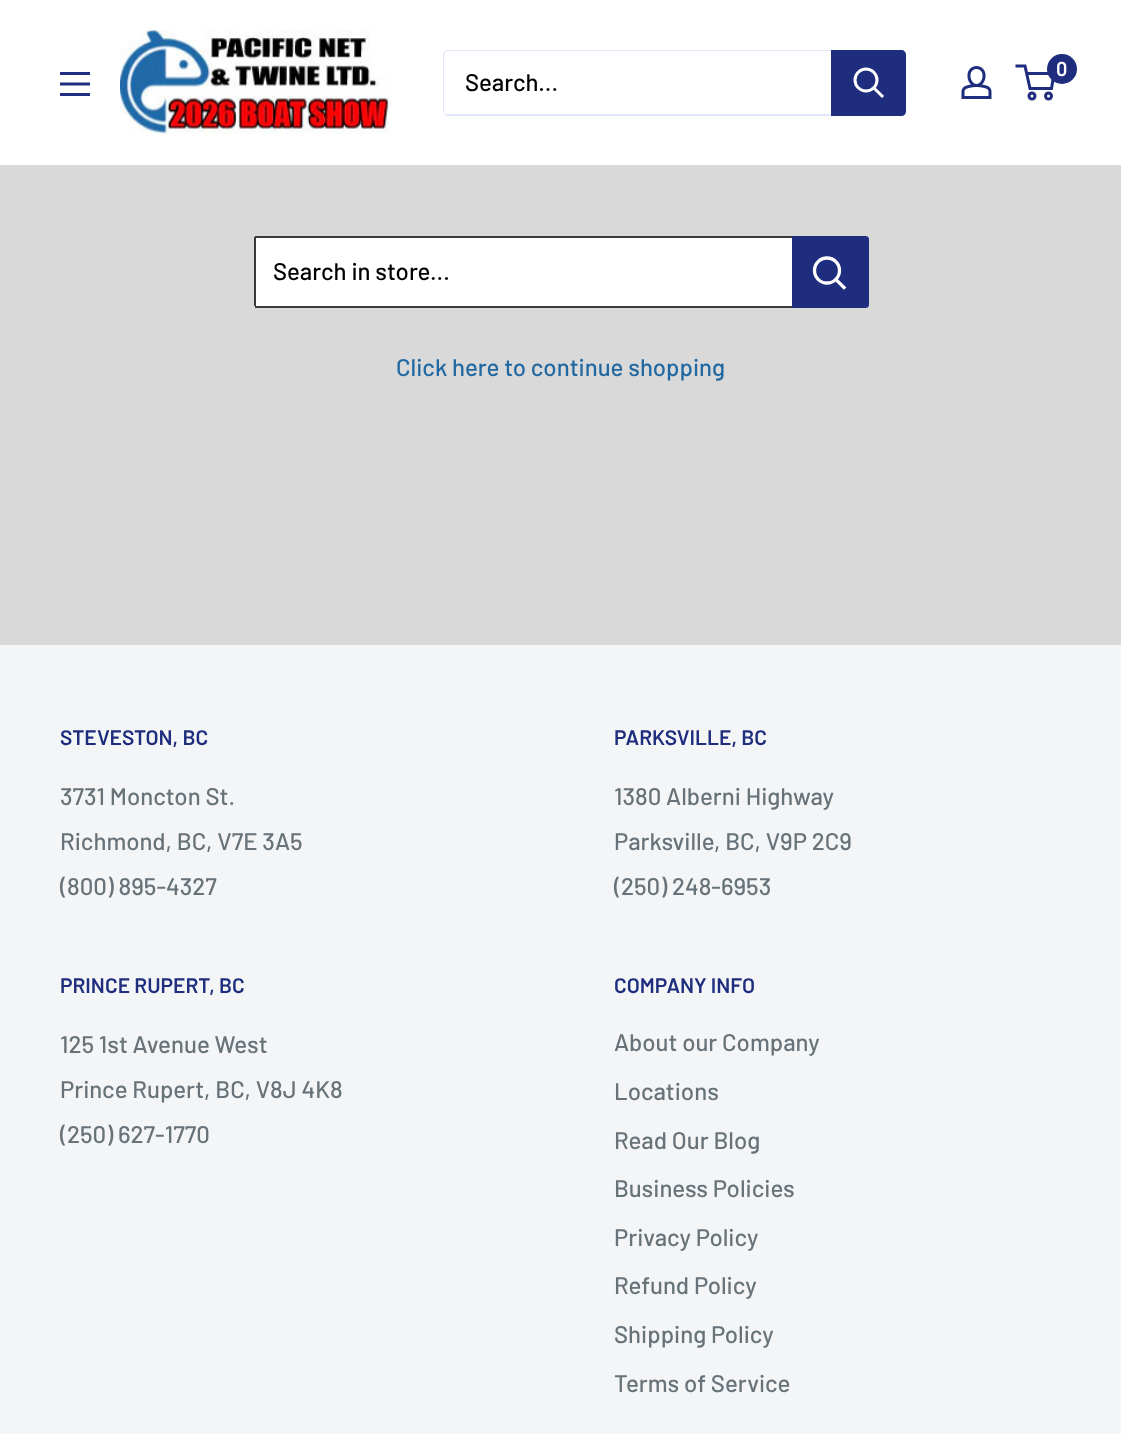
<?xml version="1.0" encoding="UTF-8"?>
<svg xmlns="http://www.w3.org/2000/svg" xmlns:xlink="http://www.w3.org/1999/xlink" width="1121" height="1434">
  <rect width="100%" height="100%" fill="#d9d9d9" />
  <rect width="1121" height="165" fill="#ffffff" />
  <image x="120" y="30" width="270" height="104" xlink:href="image1.png" />
  <image x="961" y="66" width="31" height="33" xlink:href="image2.png" />
  <circle cx="1032" cy="96" r="3" fill="none" stroke="#1e2d7d" stroke-width="3" />
  <circle cx="1048.5" cy="96" r="3" fill="none" stroke="#1e2d7d" stroke-width="3" />
  <path d="M 1026.5 73.5 h 27.5 l -2.5 15 h -21.5 l -5 -22.5 h -9.5" fill="none" stroke="#1e2d7d" stroke-width="3" />
  <circle cx="1062" cy="69" r="15" fill="#1e2d7d" />
  <image x="60" y="72" width="30" height="24" xlink:href="image3.png" />
  <path d="M 444 114 c 1 1 2 2 4 2 h 453 c 3 0 5 -2 5 -5 v -56 c 0 -2 -1 -3 -2 -4 v 59 c 0 2 -2 4 -4 4 h -454 z" fill="#e3e7fa" />
  <path d="M 448 51 h 456 c -1 -1 -2 -1 -3 -1 h -453 c -3 0 -5 2 -5 5 v 56 c 0 1 1 3 2 4 l -1 -3 v -56 c 0 -3 2 -5 4 -5 z" fill="#e3e7fa" />
  <path d="M 831 50 h 70 c 3 0 5 2 5 5 v 56 c 0 3 -2 5 -5 5 h -70 z" fill="#1e2d7d" />
  <path d="M 882 96 l -7.5 -7.5" fill="none" stroke="#ffffff" stroke-width="3" stroke-linecap="square" />
  <circle cx="866" cy="80" r="11" fill="none" stroke="#ffffff" stroke-width="3" />
  <path d="M 257 236 h 535 v 72 h -535 c -1.5 0 -3 -1.5 -3 -3 v -66 c 0 -1.5 1.5 -3 3 -3 z" fill="#ffffff" />
  <rect x="255" y="236" width="537" height="2" fill="#393a3a" />
  <rect x="255" y="306" width="537" height="2" fill="#393a3a" />
  <rect x="254" y="237" width="2" height="69" fill="#393a3a" />
  <path d="M 792 236 h 74 c 1.5 0 3 1.5 3 3 v 66 c 0 1.5 -1.5 3 -3 3 h -74 z" fill="#1e2d7d" />
  <path d="M 844 287.5 l -8 -8" fill="none" stroke="#ffffff" stroke-width="3.3" stroke-linecap="square" />
  <circle cx="827" cy="270.5" r="12.5" fill="none" stroke="#ffffff" stroke-width="3.3" />
  <rect y="645" width="1121" height="789" fill="#f3f5f6" />
  <text x="1056" y="76" style="font-family: Barlow; font-size: 20px; font-weight: 600; fill: #ffffff">0</text>
  <text x="465" y="91" style="font-family: Barlow; font-size: 24px; font-weight: 500; fill: #000000">Search...</text>
  <text x="273" y="280" style="font-family: Barlow; font-size: 24px; font-weight: 500; fill: #000000">Search in store...</text>
  <text x="396" y="376" style="font-family: Barlow; font-size: 24px; font-weight: 500; fill: #2268a1">Click here to continue shopping</text>
  <text x="60" y="745" style="font-family: Barlow; font-size: 21px; font-weight: 600; fill: #1e2d7d">STEVESTON, BC</text>
  <text x="60" y="805" style="font-family: Barlow; font-size: 24px; font-weight: 500; fill: #677279">3731 Moncton St.</text>
  <text x="60" y="850" style="font-family: Barlow; font-size: 24px; font-weight: 500; fill: #677279">Richmond, BC, V7E 3A5</text>
  <text x="60" y="895" style="font-family: Barlow; font-size: 24px; font-weight: 500; fill: #677279">(800) 895-4327</text>
  <text x="614" y="745" style="font-family: Barlow; font-size: 21px; font-weight: 600; fill: #1e2d7d">PARKSVILLE, BC</text>
  <text x="614" y="805" style="font-family: Barlow; font-size: 24px; font-weight: 500; fill: #677279">1380 Alberni Highway</text>
  <text x="614" y="850" style="font-family: Barlow; font-size: 24px; font-weight: 500; fill: #677279">Parksville, BC, V9P 2C9</text>
  <text x="614" y="895" style="font-family: Barlow; font-size: 24px; font-weight: 500; fill: #677279">(250) 248-6953</text>
  <text x="60" y="993" style="font-family: Barlow; font-size: 21px; font-weight: 600; fill: #1e2d7d">PRINCE RUPERT, BC</text>
  <text x="60" y="1053" style="font-family: Barlow; font-size: 24px; font-weight: 500; fill: #677279">125 1st Avenue West</text>
  <text x="60" y="1098" style="font-family: Barlow; font-size: 24px; font-weight: 500; fill: #677279">Prince Rupert, BC, V8J 4K8</text>
  <text x="60" y="1143" style="font-family: Barlow; font-size: 24px; font-weight: 500; fill: #677279">(250) 627-1770</text>
  <text x="614" y="993" style="font-family: Barlow; font-size: 21px; font-weight: 600; fill: #1e2d7d">COMPANY INFO</text>
  <text x="614" y="1051" style="font-family: Barlow; font-size: 24px; font-weight: 500; fill: #677279">About our Company</text>
  <text x="614" y="1100" style="font-family: Barlow; font-size: 24px; font-weight: 500; fill: #677279">Locations</text>
  <text x="614" y="1149" style="font-family: Barlow; font-size: 24px; font-weight: 500; fill: #677279">Read Our Blog</text>
  <text x="614" y="1197" style="font-family: Barlow; font-size: 24px; font-weight: 500; fill: #677279">Business Policies</text>
  <text x="614" y="1246" style="font-family: Barlow; font-size: 24px; font-weight: 500; fill: #677279">Privacy Policy</text>
  <text x="614" y="1294" style="font-family: Barlow; font-size: 24px; font-weight: 500; fill: #677279">Refund Policy</text>
  <text x="614" y="1343" style="font-family: Barlow; font-size: 24px; font-weight: 500; fill: #677279">Shipping Policy</text>
  <text x="614" y="1392" style="font-family: Barlow; font-size: 24px; font-weight: 500; fill: #677279">Terms of Service</text>
</svg>
